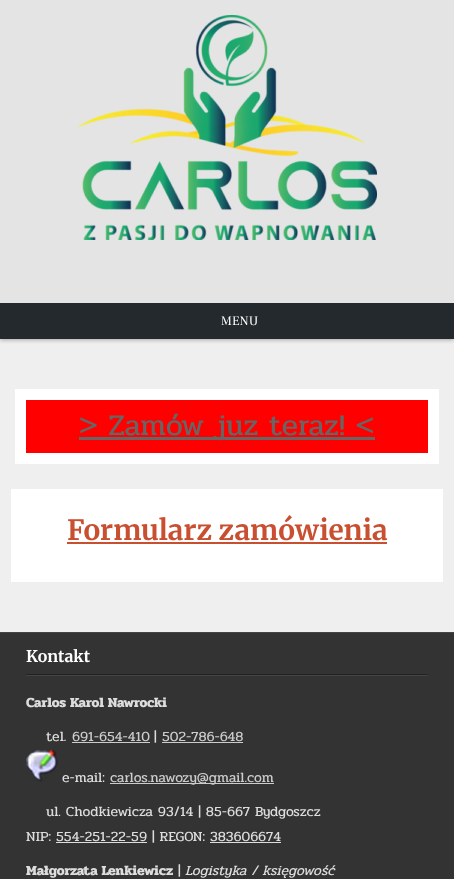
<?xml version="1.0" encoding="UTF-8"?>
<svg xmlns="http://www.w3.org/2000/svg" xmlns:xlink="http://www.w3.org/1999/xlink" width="454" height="879">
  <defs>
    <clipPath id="clip1"><rect x="26" y="648" width="402" height="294" /></clipPath>
  </defs>
  <rect width="100%" height="100%" fill="#efefef" />
  <rect y="304" width="454" height="36" fill="#000000" fill-opacity="0.3" filter="blur(2px)" />
  <rect width="454" height="303" fill="#e4e4e4" />
  <image x="77" y="15" width="300" height="225" xlink:href="image1.png" />
  <rect y="303" width="454" height="36" fill="#24292d" />
  <rect x="15" y="389" width="424" height="75" fill="#ffffff" />
  <rect x="26" y="400" width="402" height="53" fill="#ff0000" />
  <rect x="79" y="437" width="296" height="3" fill="#666666" />
  <rect x="11" y="489" width="432" height="93" fill="#ffffff" />
  <rect x="67" y="542" width="320" height="2" fill="#c94f31" />
  <rect y="633" width="454" height="246" fill="#333333" />
  <rect y="632" width="454" height="1" fill="#444444" />
  <rect x="26" y="675" width="402" height="1" fill="#444444" />
  <rect x="26" y="674" width="402" height="1" fill="#222222" />
  <rect x="72" y="742" width="78" height="1" fill="#cccccc" />
  <rect x="162" y="742" width="81" height="1" fill="#cccccc" />
  <image x="26" y="750" width="32" height="32" xlink:href="image2.png" />
  <rect x="110" y="783" width="164" height="1" fill="#cccccc" />
  <rect x="56" y="842" width="91" height="1" fill="#dddddd" />
  <rect x="210" y="842" width="71" height="1" fill="#dddddd" />
  <text x="221" y="325" style="font-family: Frank Ruhl Libre; font-size: 13px; fill: #ffffff">MENU</text>
  <text x="79" y="435" style="font-family: Pridi; font-size: 30px; fill: #666666">&gt; Zamów juz teraz! &lt;</text>
  <text x="67" y="540" style="font-family: Merriweather; font-size: 28px; font-weight: bold; fill: #c94f31">Formularz zamówienia</text>
  <text x="26" y="662" style="font-family: Merriweather; font-size: 16px; font-weight: bold; fill: #ffffff">Kontakt</text>
  <g clip-path="url(#clip1)">
    <text x="26" y="707" style="font-family: Pridi; font-size: 14px; font-weight: bold; fill: #dddddd">Carlos Karol Nawrocki</text>
  </g>
  <text x="46" y="741" style="font-family: Pridi; font-size: 14px; fill: #dddddd">tel.</text>
  <text x="72" y="741" style="font-family: Pridi; font-size: 14px; fill: #cccccc">691-654-410</text>
  <text x="154" y="741" style="font-family: Pridi; font-size: 14px; fill: #dddddd">|</text>
  <text x="162" y="741" style="font-family: Pridi; font-size: 14px; fill: #cccccc">502-786-648</text>
  <text x="62" y="782" style="font-family: Pridi; font-size: 14px; fill: #dddddd">e-mail:</text>
  <text x="110" y="782" style="font-family: Pridi; font-size: 14px; fill: #cccccc">carlos.nawozy@gmail.com</text>
  <text x="46" y="816" style="font-family: Pridi; font-size: 14px; fill: #dddddd">ul. Chodkiewicza 93/14 | 85-667 Bydgoszcz</text>
  <text x="26" y="841" style="font-family: Pridi; font-size: 14px; fill: #dddddd">NIP: 554-251-22-59 | REGON: 383606674</text>
  <g clip-path="url(#clip1)">
    <text x="26" y="875" style="font-family: Pridi; font-size: 14px; font-weight: bold; fill: #dddddd">Małgorzata Lenkiewicz</text>
  </g>
  <text x="178" y="875" style="font-family: Pridi; font-size: 14px; fill: #dddddd">|</text>
  <text x="185" y="875" style="font-family: Pridi; font-size: 14px; font-style: italic; fill: #dddddd">Logistyka / księgowość</text>
</svg>
